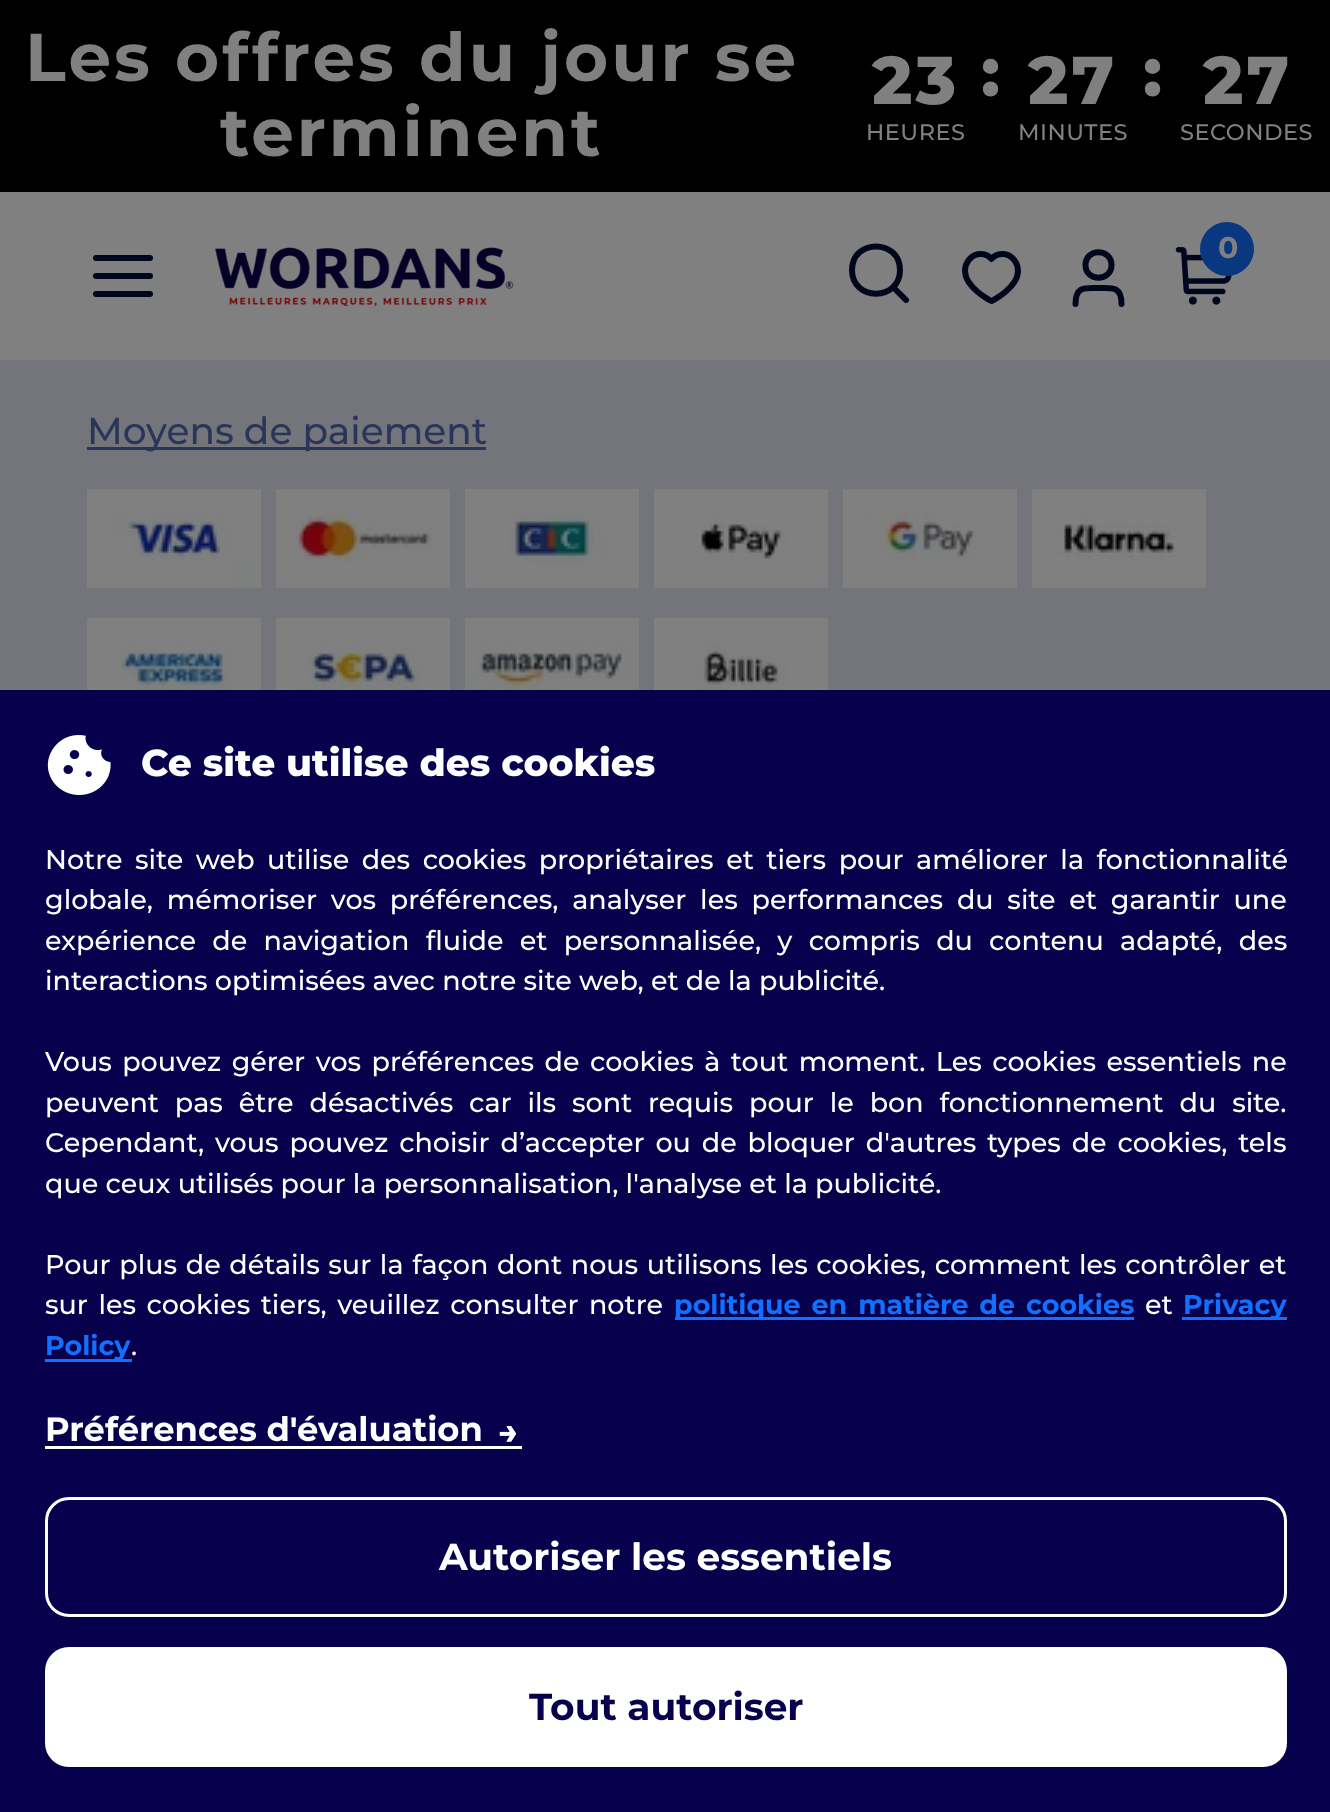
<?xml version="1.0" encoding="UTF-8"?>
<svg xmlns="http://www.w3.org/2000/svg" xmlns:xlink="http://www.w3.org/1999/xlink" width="1330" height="1812">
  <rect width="100%" height="100%" fill="#73757a" />
  <rect y="192" width="1330" height="168" fill="#808080" />
  <rect width="1330" height="192" fill="#000000" />
  <path d="M 96 276 h 54 m -54 -18 h 54 m -54 36 h 54" fill="none" stroke="#00071d" stroke-width="6" stroke-linecap="round" stroke-linejoin="round" />
  <image x="214" y="247" width="300" height="60" xlink:href="image1.png" />
  <path d="M 906 300 l -13 -13 m 7 -17 c 0 31.5 -48 31.5 -48 0 c 0 -31.5 48 -31.5 48 0 z" fill="none" stroke="#00071d" stroke-width="6" stroke-linecap="round" stroke-linejoin="round" />
  <path d="M 1002.5 254 c 9 0 15.5 8.5 15.5 17 c 0 16.5 -26 30 -26.5 30 c -0.5 0 -26.5 -13.5 -26.5 -30 c 0 -8.5 6.5 -17 15.5 -17 c 5.5 0 9 2.5 11 5 c 2 -2.5 5.5 -5 11 -5 z" fill="none" stroke="#00071d" stroke-width="6" stroke-linecap="round" stroke-linejoin="round" />
  <path d="M 1121.5 304 c 0 -18 -9 -16 -23 -16 c -14 0 -23 -2 -23 16 m 36 -39 c 0 17 -26 17 -26 0 c 0 -17 26 -17 26 0 z" fill="none" stroke="#00071d" stroke-width="6" stroke-linecap="round" stroke-linejoin="round" />
  <image x="1175" y="247" width="59" height="58" xlink:href="image2.png" />
  <circle cx="1227" cy="249" r="27" fill="#093880" />
  <rect x="87" y="447" width="399" height="3" fill="#2a3659" />
  <image x="87" y="489" width="174" height="99" xlink:href="image3.png" />
  <image x="276" y="489" width="174" height="99" xlink:href="image4.png" />
  <image x="465" y="489" width="174" height="99" xlink:href="image5.png" />
  <image x="654" y="489" width="174" height="99" xlink:href="image6.png" />
  <image x="843" y="489" width="174" height="99" xlink:href="image7.png" />
  <image x="1032" y="489" width="174" height="99" xlink:href="image8.png" />
  <image x="87" y="618" width="174" height="72" xlink:href="image9.png" />
  <image x="276" y="618" width="174" height="72" xlink:href="image10.png" />
  <image x="465" y="618" width="174" height="72" xlink:href="image11.png" />
  <image x="654" y="618" width="174" height="72" xlink:href="image12.png" />
  <rect y="690" width="1330" height="1122" fill="#07014d" />
  <image x="47" y="735" width="64" height="60" xlink:href="image13.png" />
  <rect x="675" y="1317" width="459" height="3" fill="#1170ff" />
  <rect x="1182" y="1317" width="105" height="3" fill="#1170ff" />
  <rect x="45" y="1359" width="87" height="3" fill="#1170ff" />
  <image x="499" y="1426" width="18" height="16" xlink:href="image14.png" />
  <rect x="45" y="1446" width="477" height="3" fill="#ffffff" />
  <rect x="46.5" y="1498.5" width="1239" height="117" rx="22.5" fill="none" stroke="#ffffff" stroke-width="3" />
  <rect x="45" y="1647" width="1242" height="120" rx="24" fill="#ffffff" />
  <text x="25" y="81" style="font-family: Montserrat; font-size: 67.5px; font-weight: bold; letter-spacing: 3px; fill: #808080">Les offres du jour se</text>
  <text x="220" y="156" style="font-family: Montserrat; font-size: 67.5px; font-weight: bold; letter-spacing: 3px; fill: #808080">terminent</text>
  <text x="872" y="104" style="font-family: Montserrat; font-size: 67.5px; font-weight: 800; letter-spacing: 3px; fill: #808080">23</text>
  <text x="866" y="140" style="font-family: Montserrat; font-size: 22.5px; font-weight: 500; letter-spacing: 0.5px; fill: #808080">HEURES</text>
  <text x="981" y="96" style="font-family: Montserrat; font-size: 67.5px; font-weight: 800; letter-spacing: 3px; fill: #808080">:</text>
  <text x="1028" y="104" style="font-family: Montserrat; font-size: 67.5px; font-weight: 800; letter-spacing: 3px; fill: #808080">27</text>
  <text x="1018" y="140" style="font-family: Montserrat; font-size: 22.5px; font-weight: 500; letter-spacing: 0.5px; fill: #808080">MINUTES</text>
  <text x="1143" y="96" style="font-family: Montserrat; font-size: 67.5px; font-weight: 800; letter-spacing: 3px; fill: #808080">:</text>
  <text x="1203" y="104" style="font-family: Montserrat; font-size: 67.5px; font-weight: 800; letter-spacing: 3px; fill: #808080">27</text>
  <text x="1180" y="140" style="font-family: Montserrat; font-size: 22.5px; font-weight: 500; letter-spacing: 0.5px; fill: #808080">SECONDES</text>
  <text x="1218" y="258" style="font-family: Montserrat; font-size: 30px; font-weight: bold; fill: #808080">0</text>
  <text x="87" y="444" style="font-family: Montserrat; font-size: 37.5px; font-weight: 500; fill: #2a3659">Moyens de paiement</text>
  <text x="141" y="776" style="font-family: Montserrat; font-size: 37.5px; font-weight: 800; fill: #ffffff">Ce site utilise des cookies</text>
  <text x="45" y="869" word-spacing="5.25" style="font-family: Montserrat; font-size: 27px; font-weight: 500; fill: #ffffff">Notre site web utilise des cookies propriétaires et tiers pour améliorer la fonctionnalité</text>
  <text x="45" y="909" word-spacing="6.5" style="font-family: Montserrat; font-size: 27px; font-weight: 500; fill: #ffffff">globale, mémoriser vos préférences, analyser les performances du site et garantir une</text>
  <text x="45" y="950" word-spacing="9" style="font-family: Montserrat; font-size: 27px; font-weight: 500; fill: #ffffff">expérience de navigation fluide et personnalisée, y compris du contenu adapté, des</text>
  <text x="45" y="990" style="font-family: Montserrat; font-size: 27px; font-weight: 500; fill: #ffffff">interactions optimisées avec notre site web, et de la publicité.</text>
  <text x="45" y="1071" word-spacing="3.25" style="font-family: Montserrat; font-size: 27px; font-weight: 500; fill: #ffffff">Vous pouvez gérer vos préférences de cookies à tout moment. Les cookies essentiels ne</text>
  <text x="45" y="1112" word-spacing="8.6" style="font-family: Montserrat; font-size: 27px; font-weight: 500; fill: #ffffff">peuvent pas être désactivés car ils sont requis pour le bon fonctionnement du site.</text>
  <text x="45" y="1152" word-spacing="3.6" style="font-family: Montserrat; font-size: 27px; font-weight: 500; fill: #ffffff">Cependant, vous pouvez choisir d’accepter ou de bloquer d'autres types de cookies, tels</text>
  <text x="45" y="1193" style="font-family: Montserrat; font-size: 27px; font-weight: 500; fill: #ffffff">que ceux utilisés pour la personnalisation, l'analyse et la publicité.</text>
  <text x="45" y="1274" word-spacing="1.4" style="font-family: Montserrat; font-size: 27px; font-weight: 500; fill: #ffffff">Pour plus de détails sur la façon dont nous utilisons les cookies, comment les contrôler et</text>
  <text x="45" y="1314" word-spacing="3.25" style="font-family: Montserrat; font-size: 27px; font-weight: 500; fill: #ffffff">sur les cookies tiers, veuillez consulter notre</text>
  <text x="674" y="1314" word-spacing="3.25" style="font-family: Montserrat; font-size: 27px; font-weight: bold; fill: #1170ff">politique en matière de cookies</text>
  <text x="1145" y="1314" style="font-family: Montserrat; font-size: 27px; font-weight: 500; fill: #ffffff">et</text>
  <text x="1183" y="1314" style="font-family: Montserrat; font-size: 27px; font-weight: bold; fill: #1170ff">Privacy</text>
  <text x="45" y="1355" style="font-family: Montserrat; font-size: 27px; font-weight: bold; fill: #1170ff">Policy</text>
  <text x="131" y="1355" style="font-family: Montserrat; font-size: 27px; font-weight: 500; fill: #ffffff">.</text>
  <text x="45" y="1441" style="font-family: Montserrat; font-size: 33.75px; font-weight: bold; fill: #ffffff">Préférences d'évaluation</text>
  <text x="439" y="1570" style="font-family: Montserrat; font-size: 37.5px; font-weight: bold; fill: #ffffff">Autoriser les essentiels</text>
  <text x="529" y="1720" style="font-family: Montserrat; font-size: 37.5px; font-weight: bold; fill: #07014d">Tout autoriser</text>
</svg>
